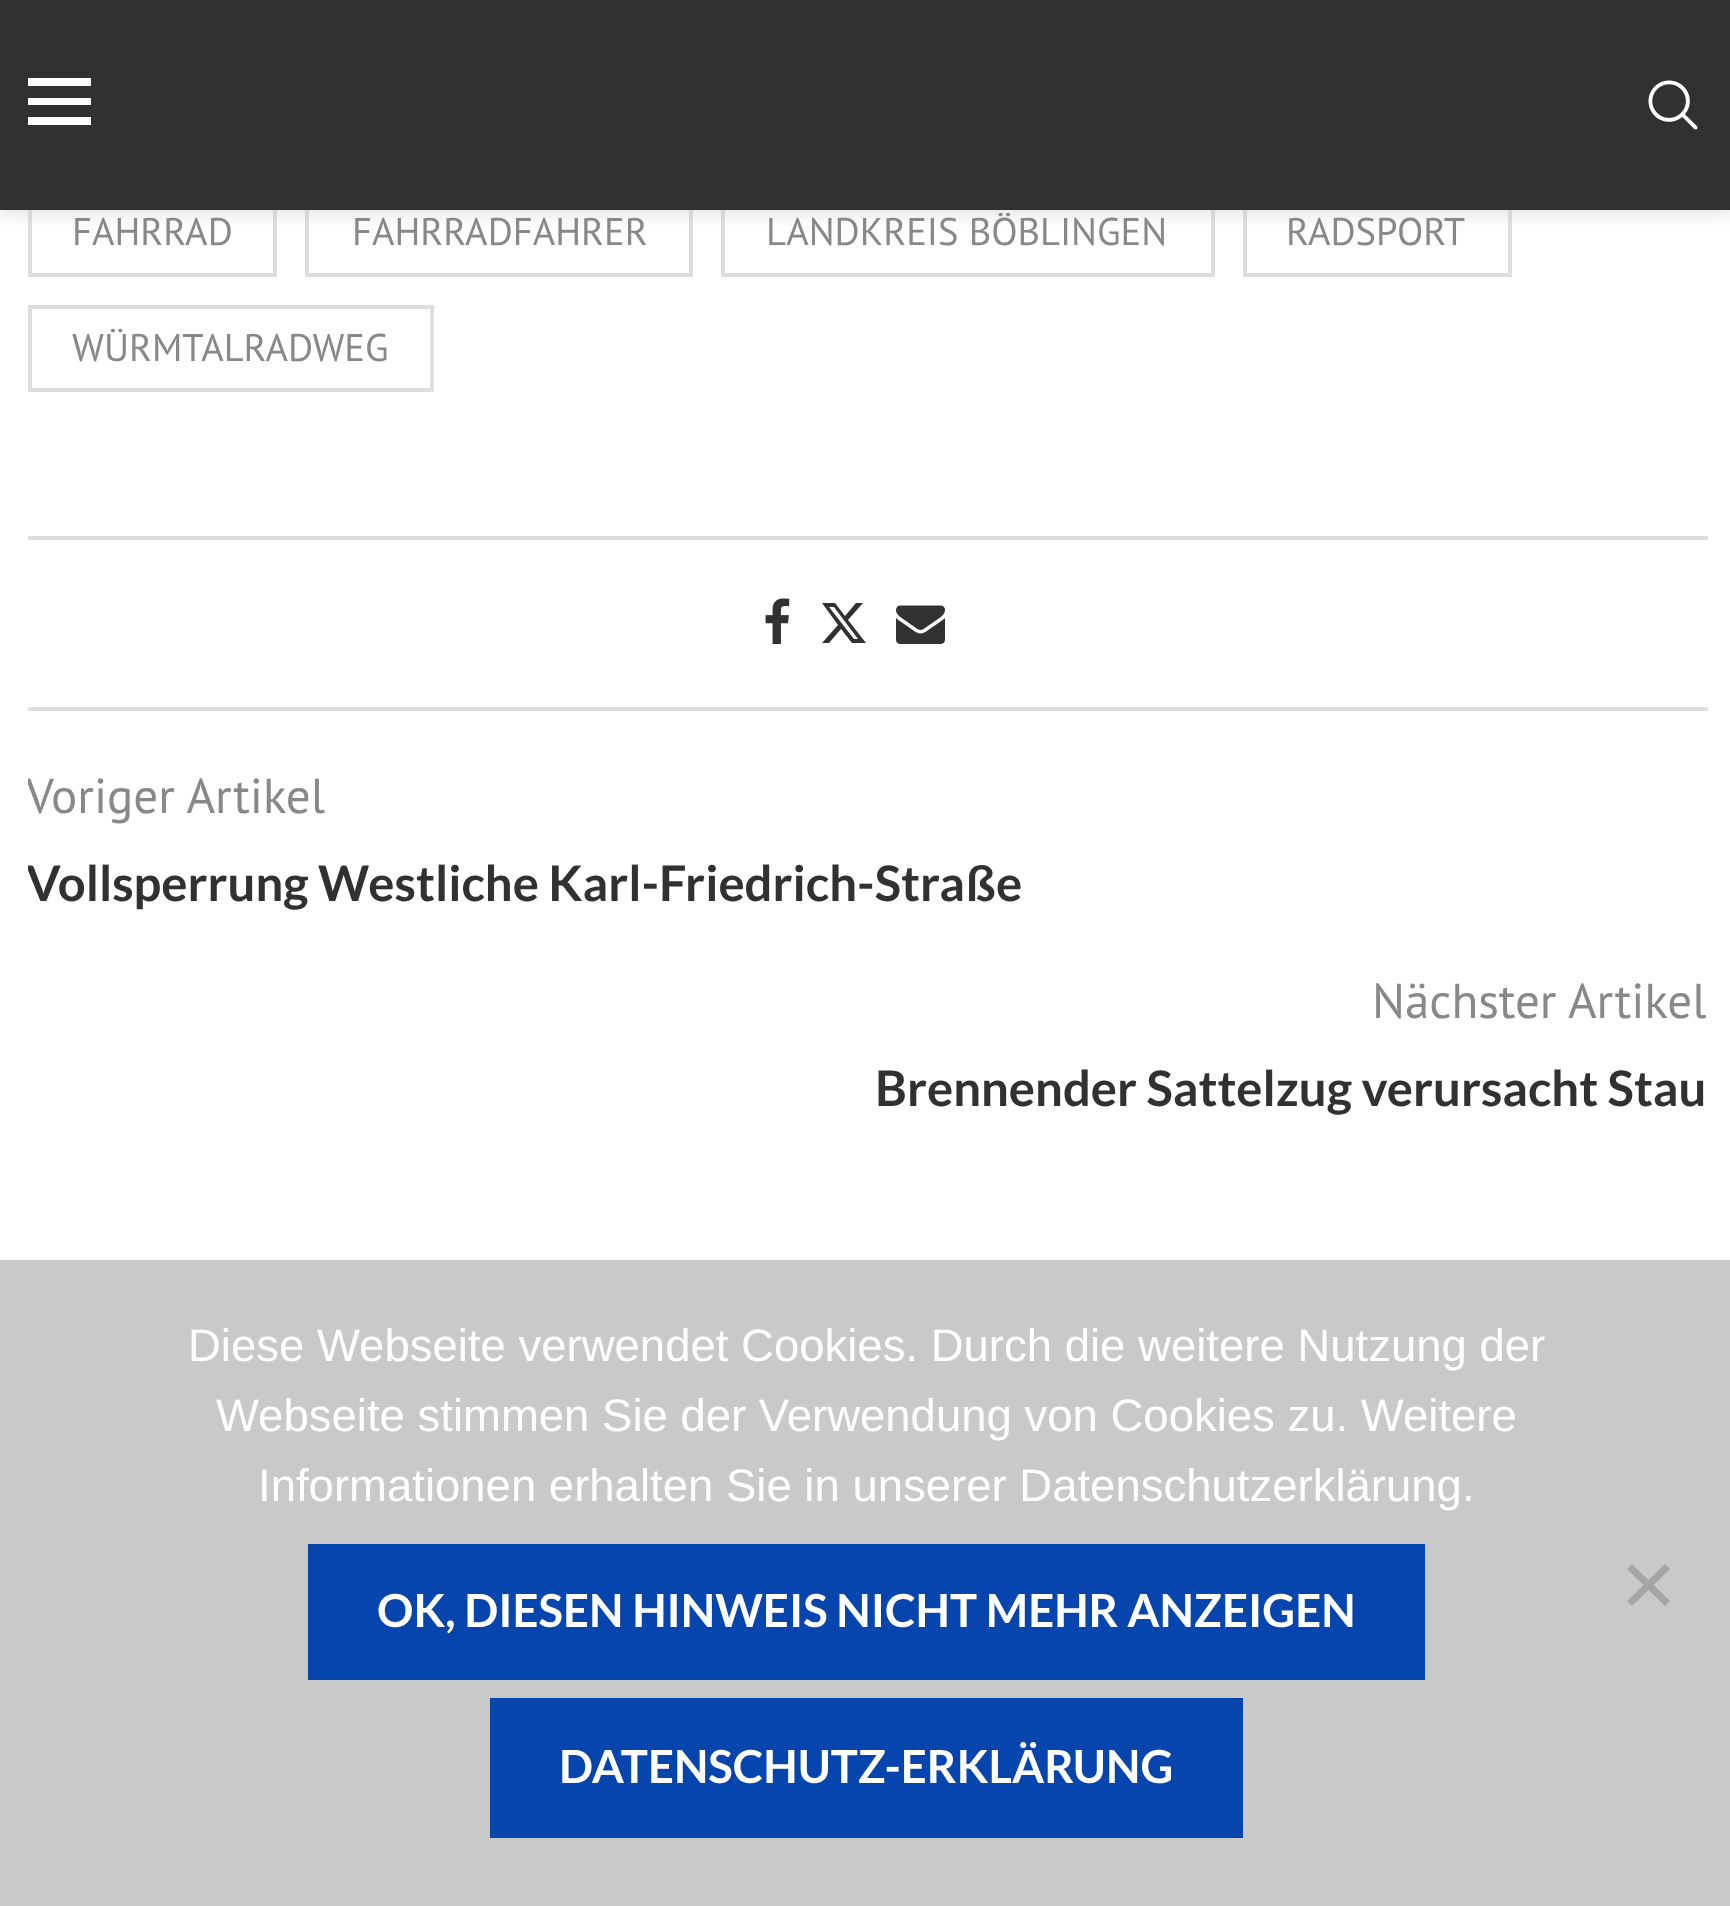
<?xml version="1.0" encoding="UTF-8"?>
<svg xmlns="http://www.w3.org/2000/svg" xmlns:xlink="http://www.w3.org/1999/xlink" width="1730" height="1906">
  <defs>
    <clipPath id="clip1"><rect x="28" y="711" width="1680" height="465" /></clipPath>
  </defs>
  <rect width="100%" height="100%" fill="#ffffff" />
  <rect x="30" y="191" width="245" height="84" fill="none" stroke="#dedede" stroke-width="4" />
  <rect x="307" y="191" width="384" height="84" fill="none" stroke="#dedede" stroke-width="4" />
  <rect x="723" y="191" width="490" height="84" fill="none" stroke="#dedede" stroke-width="4" />
  <rect x="1245" y="191" width="265" height="84" fill="none" stroke="#dedede" stroke-width="4" />
  <rect y="4" width="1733" height="210" fill="#bebebe" fill-opacity="0.46" filter="blur(9px)" />
  <rect width="1730" height="210" fill="#313131" />
  <rect x="28" y="78" width="63" height="8" fill="#ffffff" />
  <rect x="28" y="98" width="63" height="7" fill="#ffffff" />
  <rect x="28" y="117" width="63" height="8" fill="#ffffff" />
  <image x="1648" y="80" width="50" height="50" xlink:href="image1.png" />
  <rect x="30" y="307" width="402" height="83" fill="none" stroke="#dedede" stroke-width="4" />
  <rect x="28" y="536" width="1680" height="4" fill="#dedede" />
  <image x="765" y="598" width="25" height="46" xlink:href="image2.png" />
  <path d="M 856 603 h 7 l -15 17 l 18 23 h -14 l -11 -14 l -12 14 h -7 l 16 -18 l -16 -22 h 13 l 10 13 z m -2 36 h 4 l -24 -32 h -5 z" fill="#313131" />
  <image x="896" y="605" width="49" height="39" xlink:href="image3.png" />
  <rect x="28" y="707" width="1680" height="4" fill="#dedede" />
  <rect y="1260" width="1730" height="646" fill="#c9c9c9" />
  <path d="M 1665 1564 l 5 5 l -38 37 l -5 -5 z" fill="#a5a5a5" />
  <path d="M 1627 1569 l 5 -5 l 38 37 l -5 5 z" fill="#a5a5a5" />
  <rect x="308" y="1544" width="1117" height="136" fill="#0645ad" />
  <rect x="490" y="1698" width="753" height="140" fill="#0645ad" />
  <text x="72" y="245" style="font-family: PT Sans; font-size: 38.5px; fill: #888888">FAHRRAD</text>
  <text x="352" y="245" style="font-family: PT Sans; font-size: 38.5px; fill: #888888">FAHRRADFAHRER</text>
  <text x="766" y="245" style="font-family: PT Sans; font-size: 38.5px; fill: #888888">LANDKREIS BÖBLINGEN</text>
  <text x="1286" y="245" style="font-family: PT Sans; font-size: 38.5px; fill: #888888">RADSPORT</text>
  <text x="72" y="361" style="font-family: PT Sans; font-size: 38.5px; fill: #888888">WÜRMTALRADWEG</text>
  <g clip-path="url(#clip1)">
    <text x="26" y="813" style="font-family: PT Sans; font-size: 49px; fill: #888888">Voriger Artikel</text>
    <text x="26" y="901" style="font-family: Lato; font-size: 49px; font-weight: bold; fill: #313131">Vollsperrung Westliche Karl-Friedrich-Straße</text>
  </g>
  <text x="1372" y="1018" style="font-family: PT Sans; font-size: 49px; fill: #888888">Nächster Artikel</text>
  <text x="875" y="1106" style="font-family: Lato; font-size: 49px; font-weight: bold; fill: #313131">Brennender Sattelzug verursacht Stau</text>
  <text x="188" y="1361" style="font-family: Liberation Sans; font-size: 45.5px; fill: #ffffff">Diese Webseite verwendet Cookies. Durch die weitere Nutzung der</text>
  <text x="216" y="1431" style="font-family: Liberation Sans; font-size: 45.5px; fill: #ffffff">Webseite stimmen Sie der Verwendung von Cookies zu. Weitere</text>
  <text x="258" y="1501" style="font-family: Liberation Sans; font-size: 45.5px; fill: #ffffff">Informationen erhalten Sie in unserer Datenschutzerklärung.</text>
  <text x="377" y="1627" style="font-family: Lato; font-size: 45.5px; font-weight: bold; fill: #ffffff">OK, DIESEN HINWEIS NICHT MEHR ANZEIGEN</text>
  <text x="559" y="1783" style="font-family: Lato; font-size: 45.5px; font-weight: bold; fill: #ffffff">DATENSCHUTZ-ERKLÄRUNG</text>
</svg>
